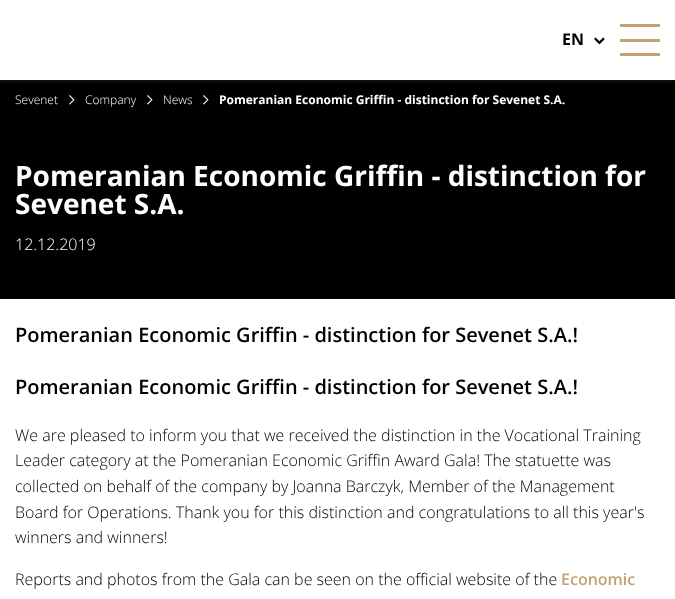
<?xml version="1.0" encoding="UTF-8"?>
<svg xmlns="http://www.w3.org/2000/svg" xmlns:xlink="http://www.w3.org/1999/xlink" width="675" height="599">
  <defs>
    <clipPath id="clip1"><rect x="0" y="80" width="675" height="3" /></clipPath>
  </defs>
  <rect width="100%" height="100%" fill="#ffffff" />
  <rect y="80" width="675" height="219" fill="#000000" />
  <g clip-path="url(#clip1)">
    <rect y="2" width="675" height="80" fill="#c2a275" fill-opacity="0.1" filter="blur(1px)" />
  </g>
  <image x="594" y="37" width="11" height="8" xlink:href="image1.png" />
  <rect x="620" y="24" width="40" height="3" fill="#c2a274" />
  <rect x="620" y="39" width="40" height="3" fill="#c2a274" />
  <rect x="620" y="53" width="40" height="3" fill="#c2a274" />
  <image x="69" y="95" width="6" height="10" xlink:href="image2.png" />
  <image x="147" y="95" width="6" height="10" xlink:href="image2.png" />
  <image x="203" y="95" width="6" height="10" xlink:href="image2.png" />
  <text x="562" y="45" style="font-family: Open Sans; font-size: 16px; font-weight: bold; fill: #000000">EN</text>
  <text x="15" y="104" style="font-family: Open Sans; font-size: 12px; font-weight: 300; fill: #ffffff">Sevenet</text>
  <text x="85" y="104" style="font-family: Open Sans; font-size: 12px; font-weight: 300; fill: #ffffff">Company</text>
  <text x="163" y="104" style="font-family: Open Sans; font-size: 12px; font-weight: 300; fill: #ffffff">News</text>
  <text x="219" y="104" style="font-family: Open Sans; font-size: 12px; font-weight: bold; fill: #ffffff">Pomeranian Economic Griffin - distinction for Sevenet S.A.</text>
  <text x="15" y="186" style="font-family: Open Sans; font-size: 28px; font-weight: bold; fill: #ffffff">Pomeranian Economic Griffin - distinction for</text>
  <text x="15" y="214" style="font-family: Open Sans; font-size: 28px; font-weight: bold; fill: #ffffff">Sevenet S.A.</text>
  <text x="15" y="250" style="font-family: Open Sans; font-size: 16px; font-weight: 300; fill: #ffffff">12.12.2019</text>
  <text x="15" y="342" style="font-family: Open Sans; font-size: 20px; font-weight: 600; fill: #000000">Pomeranian Economic Griffin - distinction for Sevenet S.A.!</text>
  <text x="15" y="394" style="font-family: Open Sans; font-size: 20px; font-weight: 600; fill: #000000">Pomeranian Economic Griffin - distinction for Sevenet S.A.!</text>
  <text x="15" y="441" style="font-family: Open Sans; font-size: 16px; font-weight: 300; fill: #000000">We are pleased to inform you that we received the distinction in the Vocational Training</text>
  <text x="15" y="466" style="font-family: Open Sans; font-size: 16px; font-weight: 300; fill: #000000">Leader category at the Pomeranian Economic Griffin Award Gala! The statuette was</text>
  <text x="15" y="492" style="font-family: Open Sans; font-size: 16px; font-weight: 300; fill: #000000">collected on behalf of the company by Joanna Barczyk, Member of the Management</text>
  <text x="15" y="518" style="font-family: Open Sans; font-size: 16px; font-weight: 300; fill: #000000">Board for Operations. Thank you for this distinction and congratulations to all this year's</text>
  <text x="15" y="543" style="font-family: Open Sans; font-size: 16px; font-weight: 300; fill: #000000">winners and winners!</text>
  <text x="15" y="585" style="font-family: Open Sans; font-size: 16px; font-weight: 300; fill: #000000">Reports and photos from the Gala can be seen on the official website of the</text>
  <text x="561" y="585" style="font-family: Open Sans; font-size: 16px; font-weight: 600; fill: #c2a274">Economic</text>
</svg>
